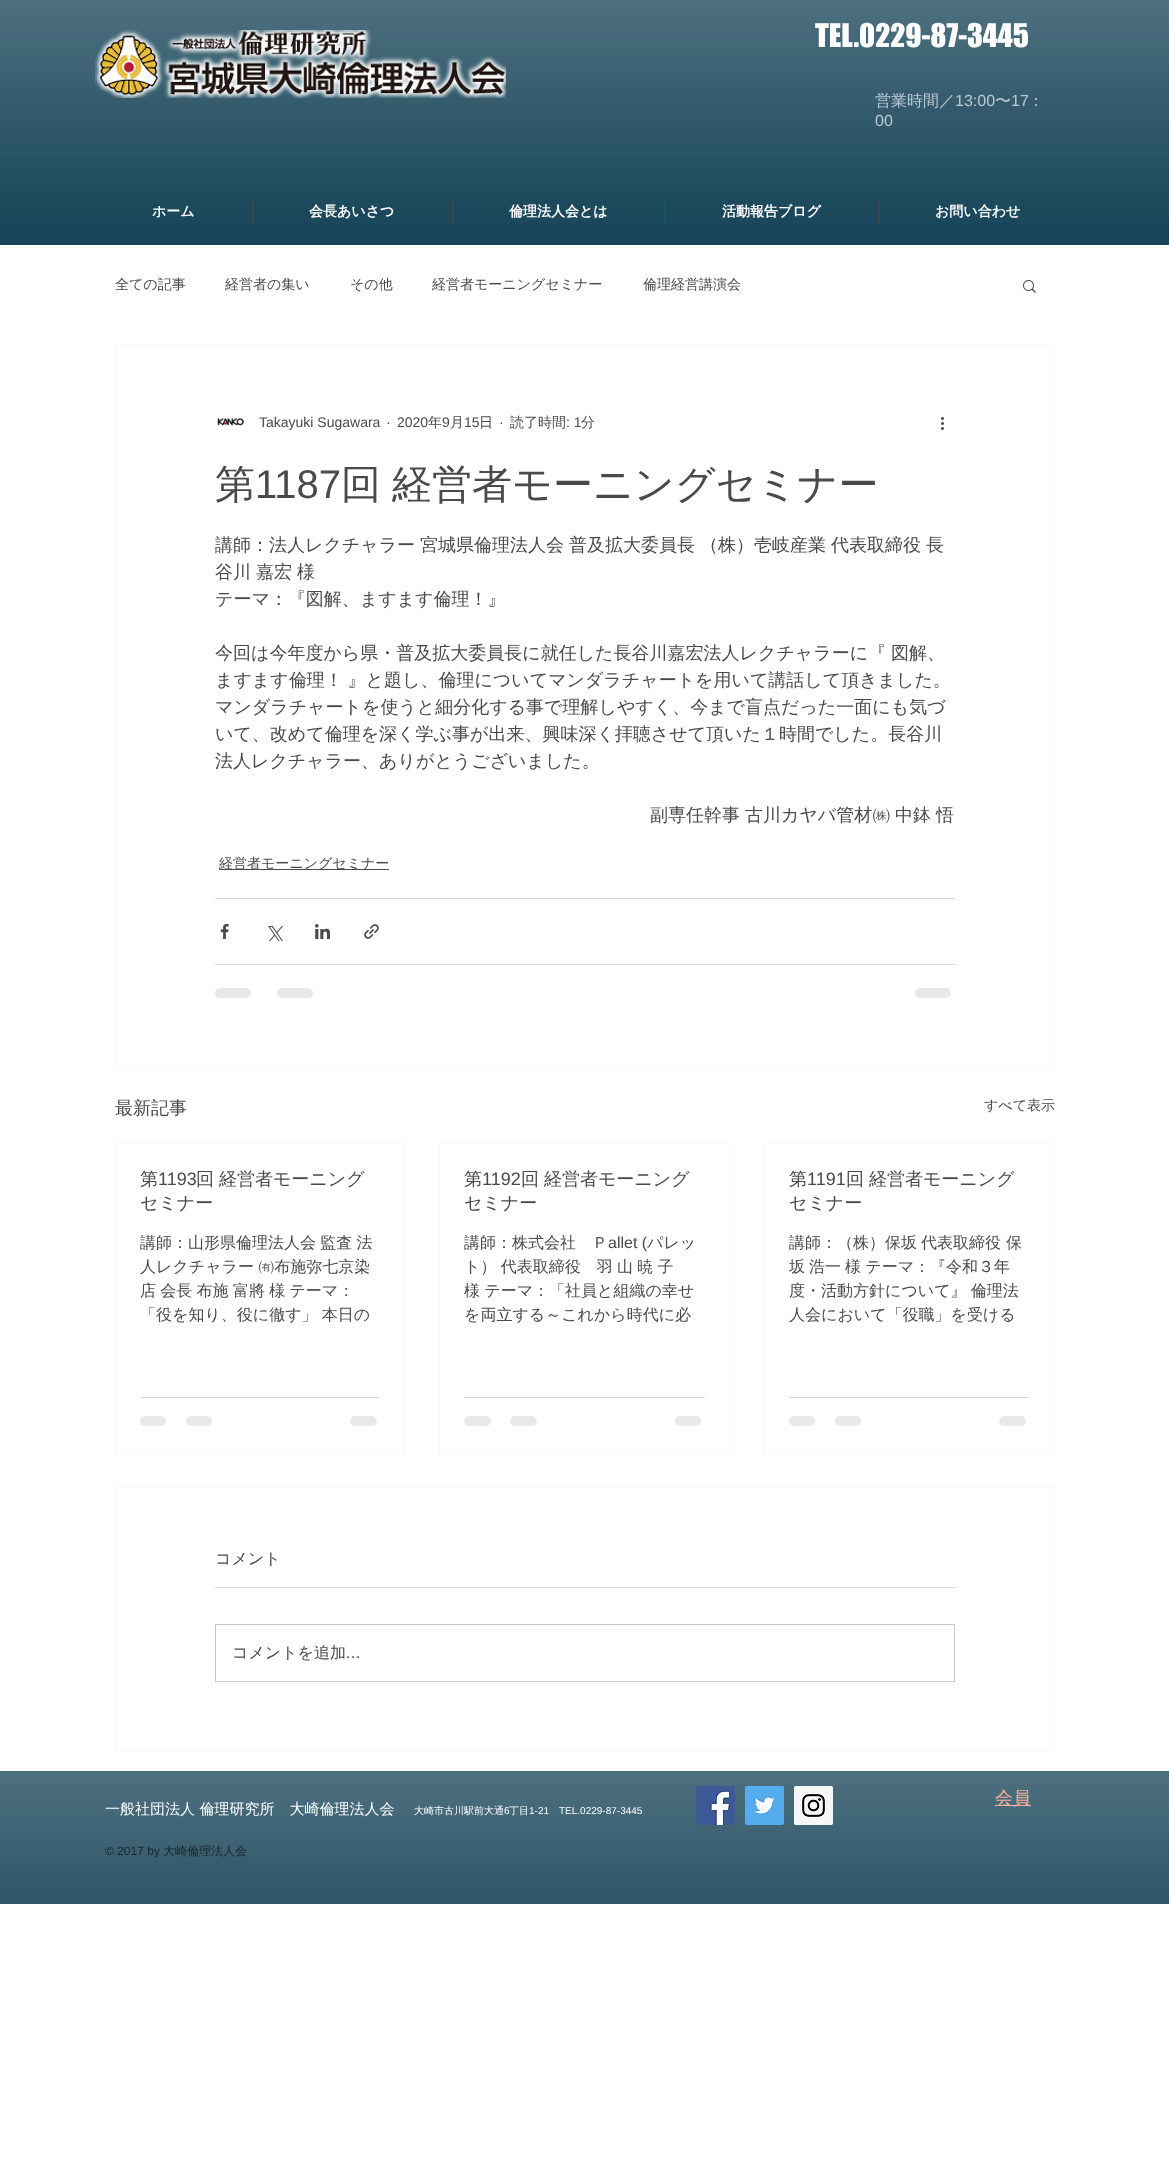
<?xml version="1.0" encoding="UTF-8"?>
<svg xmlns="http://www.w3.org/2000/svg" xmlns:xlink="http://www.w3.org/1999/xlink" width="1169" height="2178">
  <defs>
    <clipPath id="clip1"><rect x="140" y="1231" width="240" height="96" /></clipPath>
  </defs>
  <rect width="100%" height="100%" fill="#ffffff" />
  <rect width="1169" height="245" fill="#103f54" />
  <image x="0" y="0" width="1169" height="245" xlink:href="image1.png" />
  <image x="95" y="30" width="411" height="68" xlink:href="image2.png" />
  <rect x="252" y="199" width="1" height="25" fill="#4a4a4a" />
  <rect x="452" y="199" width="1" height="25" fill="#4a4a4a" />
  <rect x="665" y="199" width="1" height="25" fill="#4a4a4a" />
  <rect x="878" y="199" width="1" height="25" fill="#4a4a4a" />
  <image x="1023" y="280" width="13" height="13" xlink:href="image3.png" />
  <rect x="115.5" y="345.5" width="939" height="719" fill="none" stroke="#f9f9f9" />
  <image x="217" y="418" width="27" height="8" xlink:href="image4.png" />
  <image x="941" y="417" width="3" height="13" xlink:href="image5.png" />
  <rect x="219" y="869" width="170" height="1" fill="#4a4a4a" />
  <rect x="215" y="898" width="740" height="1" fill="#dbdbdb" />
  <image x="220" y="924" width="9" height="15" xlink:href="image6.png" />
  <image x="268" y="926" width="15" height="15" xlink:href="image7.png" />
  <image x="315" y="924" width="15" height="15" xlink:href="image8.png" />
  <image x="364" y="924" width="15" height="15" xlink:href="image9.png" />
  <rect x="215" y="964" width="740" height="1" fill="#dbdbdb" />
  <rect x="215" y="988" width="36" height="10" rx="5" fill="#e9e9e9" />
  <rect x="277" y="988" width="36" height="10" rx="5" fill="#e9e9e9" />
  <rect x="915" y="988" width="36" height="10" rx="5" fill="#e9e9e9" />
  <rect x="115.5" y="1142.5" width="289" height="313" fill="none" stroke="#f9f9f9" />
  <rect x="140" y="1397" width="240" height="1" fill="#dbdbdb" />
  <rect x="140" y="1416" width="26" height="10" rx="5" fill="#e9e9e9" />
  <rect x="186" y="1416" width="26" height="10" rx="5" fill="#e9e9e9" />
  <rect x="350" y="1416" width="27" height="10" rx="5" fill="#e9e9e9" />
  <rect x="439.5" y="1142.5" width="290" height="313" fill="none" stroke="#f9f9f9" />
  <rect x="464" y="1397" width="241" height="1" fill="#dbdbdb" />
  <rect x="464" y="1416" width="27" height="10" rx="5" fill="#e9e9e9" />
  <rect x="510" y="1416" width="27" height="10" rx="5" fill="#e9e9e9" />
  <rect x="675" y="1416" width="26" height="10" rx="5" fill="#e9e9e9" />
  <rect x="764.5" y="1142.5" width="289" height="313" fill="none" stroke="#f9f9f9" />
  <rect x="789" y="1397" width="240" height="1" fill="#dbdbdb" />
  <rect x="789" y="1416" width="26" height="10" rx="5" fill="#e9e9e9" />
  <rect x="835" y="1416" width="26" height="10" rx="5" fill="#e9e9e9" />
  <rect x="999" y="1416" width="27" height="10" rx="5" fill="#e9e9e9" />
  <rect x="115.5" y="1486.5" width="939" height="264" fill="none" stroke="#f9f9f9" />
  <rect x="215" y="1587" width="740" height="1" fill="#dbdbdb" />
  <rect x="215.5" y="1624.5" width="739" height="57" fill="none" stroke="#c9c9c9" />
  <rect y="1771" width="1169" height="133" fill="#103f54" />
  <image x="0" y="1771" width="1169" height="133" xlink:href="image10.png" />
  <image x="696" y="1786" width="39" height="39" xlink:href="image11.png" />
  <image x="745" y="1786" width="39" height="39" xlink:href="image12.png" />
  <image x="794" y="1786" width="39" height="39" xlink:href="image13.png" />
  <rect x="995" y="1805" width="36" height="1" fill="#ffb19e" />
  <text x="815" y="47" style="font-family: 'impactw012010'; font-size: 30px; fill: #ffffff">TEL.0229-87-3445</text>
  <text x="875" y="106" style="font-family: WenQuanYi Zen Hei; font-size: 16px; font-weight: 500; fill: #bdcad3">営業時間／</text>
  <text x="955" y="106" style="font-family: Liberation Sans; font-size: 16px; fill: #bdcad3">13:00</text>
  <text x="995" y="106" style="font-family: WenQuanYi Zen Hei; font-size: 16px; font-weight: 500; fill: #bdcad3">〜</text>
  <text x="1011" y="106" style="font-family: Liberation Sans; font-size: 16px; fill: #bdcad3">17</text>
  <text x="1028" y="106" style="font-family: WenQuanYi Zen Hei; font-size: 16px; font-weight: 500; fill: #bdcad3">：</text>
  <text x="875" y="126" style="font-family: Liberation Sans; font-size: 16px; fill: #bdcad3">00</text>
  <text x="152" y="216" style="font-family: WenQuanYi Zen Hei; font-size: 14px; font-weight: bold; fill: #ffffff">ホーム</text>
  <text x="309" y="216" style="font-family: WenQuanYi Zen Hei; font-size: 14px; font-weight: bold; fill: #ffffff">会長あいさつ</text>
  <text x="509" y="216" style="font-family: WenQuanYi Zen Hei; font-size: 14px; font-weight: bold; fill: #ffffff">倫理法人会とは</text>
  <text x="722" y="216" style="font-family: WenQuanYi Zen Hei; font-size: 14px; font-weight: bold; fill: #ffffff">活動報告ブログ</text>
  <text x="935" y="216" style="font-family: WenQuanYi Zen Hei; font-size: 14px; font-weight: bold; fill: #ffffff">お問い合わせ</text>
  <text x="115" y="289" style="font-family: WenQuanYi Zen Hei; font-size: 14px; font-weight: 500; fill: #4a4a4a">全ての記事</text>
  <text x="225" y="289" style="font-family: WenQuanYi Zen Hei; font-size: 14px; font-weight: 500; fill: #4a4a4a">経営者の集い</text>
  <text x="350" y="289" style="font-family: WenQuanYi Zen Hei; font-size: 14px; font-weight: 500; fill: #4a4a4a">その他</text>
  <text x="432" y="289" style="font-family: WenQuanYi Zen Hei; font-size: 14px; font-weight: 500; fill: #4a4a4a">経営者モーニングセミナー</text>
  <text x="643" y="289" style="font-family: WenQuanYi Zen Hei; font-size: 14px; font-weight: 500; fill: #4a4a4a">倫理経営講演会</text>
  <text x="259" y="427" style="font-family: Liberation Sans; font-size: 14px; fill: #4a4a4a">Takayuki Sugawara</text>
  <text x="386" y="427" style="font-family: Liberation Sans; font-size: 14px; fill: #4a4a4a">·</text>
  <text x="397" y="427" style="font-family: Liberation Sans; font-size: 14px; fill: #4a4a4a">2020</text>
  <text x="428" y="427" style="font-family: WenQuanYi Zen Hei; font-size: 14px; font-weight: 500; fill: #4a4a4a">年</text>
  <text x="442" y="427" style="font-family: Liberation Sans; font-size: 14px; fill: #4a4a4a">9</text>
  <text x="450" y="427" style="font-family: WenQuanYi Zen Hei; font-size: 14px; font-weight: 500; fill: #4a4a4a">月</text>
  <text x="464" y="427" style="font-family: Liberation Sans; font-size: 14px; fill: #4a4a4a">15</text>
  <text x="479" y="427" style="font-family: WenQuanYi Zen Hei; font-size: 14px; font-weight: 500; fill: #4a4a4a">日</text>
  <text x="499" y="427" style="font-family: Liberation Sans; font-size: 14px; fill: #4a4a4a">·</text>
  <text x="510" y="427" style="font-family: WenQuanYi Zen Hei; font-size: 14px; font-weight: 500; fill: #4a4a4a">読了時間</text>
  <text x="566" y="427" style="font-family: Liberation Sans; font-size: 14px; fill: #4a4a4a">: 1</text>
  <text x="581" y="427" style="font-family: WenQuanYi Zen Hei; font-size: 14px; font-weight: 500; fill: #4a4a4a">分</text>
  <text x="215" y="498" style="font-family: WenQuanYi Zen Hei; font-size: 40px; font-weight: 500; fill: #4a4a4a">第</text>
  <text x="255" y="498" style="font-family: Liberation Sans; font-size: 40px; fill: #4a4a4a">1187</text>
  <text x="341" y="498" word-spacing="-1" style="font-family: WenQuanYi Zen Hei; font-size: 40px; font-weight: 500; fill: #4a4a4a">回 経営者モーニングセミナー</text>
  <text x="215" y="551" style="font-family: WenQuanYi Zen Hei; font-size: 18px; font-weight: 500; fill: #4a4a4a">講師：法人レクチャラー</text>
  <text x="420" y="551" style="font-family: WenQuanYi Zen Hei; font-size: 18px; font-weight: 500; fill: #4a4a4a">宮城県倫理法人会</text>
  <text x="569" y="551" style="font-family: WenQuanYi Zen Hei; font-size: 18px; font-weight: 500; fill: #4a4a4a">普及拡大委員長</text>
  <text x="700" y="551" style="font-family: WenQuanYi Zen Hei; font-size: 18px; font-weight: 500; fill: #4a4a4a">（株）壱岐産業</text>
  <text x="831" y="551" style="font-family: WenQuanYi Zen Hei; font-size: 18px; font-weight: 500; fill: #4a4a4a">代表取締役</text>
  <text x="926" y="551" style="font-family: WenQuanYi Zen Hei; font-size: 18px; font-weight: 500; fill: #4a4a4a">長</text>
  <text x="215" y="578" style="font-family: WenQuanYi Zen Hei; font-size: 18px; font-weight: 500; fill: #4a4a4a">谷川</text>
  <text x="256" y="578" style="font-family: WenQuanYi Zen Hei; font-size: 18px; font-weight: 500; fill: #4a4a4a">嘉宏</text>
  <text x="297" y="578" style="font-family: WenQuanYi Zen Hei; font-size: 18px; font-weight: 500; fill: #4a4a4a">様</text>
  <text x="215" y="605" style="font-family: WenQuanYi Zen Hei; font-size: 18px; font-weight: 500; fill: #4a4a4a">テーマ：『図解、ますます倫理！』</text>
  <text x="215" y="659" word-spacing="-0.5" style="font-family: WenQuanYi Zen Hei; font-size: 18px; font-weight: 500; fill: #4a4a4a">今回は今年度から県・普及拡大委員長に就任した長谷川嘉宏法人レクチャラーに『 図解、</text>
  <text x="215" y="686" word-spacing="-0.5" style="font-family: WenQuanYi Zen Hei; font-size: 18px; font-weight: 500; fill: #4a4a4a">ますます倫理！ 』と題し、倫理についてマンダラチャートを用いて講話して頂きました。</text>
  <text x="215" y="713" style="font-family: WenQuanYi Zen Hei; font-size: 18px; font-weight: 500; fill: #4a4a4a">マンダラチャートを使うと細分化する事で理解しやすく、今まで盲点だった一面にも気づ</text>
  <text x="215" y="740" style="font-family: WenQuanYi Zen Hei; font-size: 18px; font-weight: 500; fill: #4a4a4a">いて、改めて倫理を深く学ぶ事が出来、興味深く拝聴させて頂いた１時間でした。長谷川</text>
  <text x="215" y="767" style="font-family: WenQuanYi Zen Hei; font-size: 18px; font-weight: 500; fill: #4a4a4a">法人レクチャラー、ありがとうございました。</text>
  <text x="650" y="821" word-spacing="-0.5" style="font-family: WenQuanYi Zen Hei; font-size: 18px; font-weight: 500; fill: #4a4a4a">副専任幹事 古川カヤバ管材㈱ 中鉢 悟</text>
  <text x="219" y="868" style="font-family: WenQuanYi Zen Hei; font-size: 14px; font-weight: 500; fill: #4a4a4a">経営者モーニングセミナー</text>
  <text x="115" y="1114" style="font-family: WenQuanYi Zen Hei; font-size: 18px; font-weight: 500; fill: #4a4a4a">最新記事</text>
  <text x="984" y="1110" style="font-family: WenQuanYi Zen Hei; font-size: 14px; font-weight: 500; fill: #4a4a4a">すべて表示</text>
  <text x="140" y="1185" style="font-family: WenQuanYi Zen Hei; font-size: 18px; font-weight: 500; fill: #4a4a4a">第</text>
  <text x="158" y="1185" style="font-family: Liberation Sans; font-size: 18px; fill: #4a4a4a">1193</text>
  <text x="196" y="1185" word-spacing="-0.5" style="font-family: WenQuanYi Zen Hei; font-size: 18px; font-weight: 500; fill: #4a4a4a">回 経営者モーニング</text>
  <text x="140" y="1209" style="font-family: WenQuanYi Zen Hei; font-size: 18px; font-weight: 500; fill: #4a4a4a">セミナー</text>
  <g clip-path="url(#clip1)">
    <text x="140" y="1248" word-spacing="-0.5" style="font-family: WenQuanYi Zen Hei; font-size: 16px; font-weight: 500; fill: #4a4a4a">講師：山形県倫理法人会 監査 法</text>
  </g>
  <text x="140" y="1272" word-spacing="-0.5" style="font-family: WenQuanYi Zen Hei; font-size: 16px; font-weight: 500; fill: #4a4a4a">人レクチャラー ㈲布施弥七京染</text>
  <text x="140" y="1296" word-spacing="-0.5" style="font-family: WenQuanYi Zen Hei; font-size: 16px; font-weight: 500; fill: #4a4a4a">店 会長 布施 富將 様 テーマ：</text>
  <text x="140" y="1320" word-spacing="-0.5" style="font-family: WenQuanYi Zen Hei; font-size: 16px; font-weight: 500; fill: #4a4a4a">「役を知り、役に徹す」 本日の</text>
  <text x="464" y="1185" style="font-family: WenQuanYi Zen Hei; font-size: 18px; font-weight: 500; fill: #4a4a4a">第</text>
  <text x="482" y="1185" style="font-family: Liberation Sans; font-size: 18px; fill: #4a4a4a">1192</text>
  <text x="521" y="1185" word-spacing="-0.5" style="font-family: WenQuanYi Zen Hei; font-size: 18px; font-weight: 500; fill: #4a4a4a">回 経営者モーニング</text>
  <text x="464" y="1209" style="font-family: WenQuanYi Zen Hei; font-size: 18px; font-weight: 500; fill: #4a4a4a">セミナー</text>
  <text x="464" y="1248" style="font-family: WenQuanYi Zen Hei; font-size: 16px; font-weight: 500; fill: #4a4a4a">講師：株式会社　Ｐ</text>
  <text x="608" y="1248" style="font-family: Liberation Sans; font-size: 16px; fill: #4a4a4a">allet (</text>
  <text x="647" y="1248" style="font-family: WenQuanYi Zen Hei; font-size: 16px; font-weight: 500; fill: #4a4a4a">パレッ</text>
  <text x="464" y="1272" word-spacing="-0.5" style="font-family: WenQuanYi Zen Hei; font-size: 16px; font-weight: 500; fill: #4a4a4a">ト） 代表取締役　羽 山 暁 子</text>
  <text x="464" y="1296" word-spacing="-0.5" style="font-family: WenQuanYi Zen Hei; font-size: 16px; font-weight: 500; fill: #4a4a4a">様 テーマ：「社員と組織の幸せ</text>
  <text x="464" y="1320" style="font-family: WenQuanYi Zen Hei; font-size: 16px; font-weight: 500; fill: #4a4a4a">を両立する～これから時代に必</text>
  <text x="789" y="1185" style="font-family: WenQuanYi Zen Hei; font-size: 18px; font-weight: 500; fill: #4a4a4a">第</text>
  <text x="807" y="1185" style="font-family: Liberation Sans; font-size: 18px; fill: #4a4a4a">1191</text>
  <text x="846" y="1185" word-spacing="-0.5" style="font-family: WenQuanYi Zen Hei; font-size: 18px; font-weight: 500; fill: #4a4a4a">回 経営者モーニング</text>
  <text x="789" y="1209" style="font-family: WenQuanYi Zen Hei; font-size: 18px; font-weight: 500; fill: #4a4a4a">セミナー</text>
  <text x="789" y="1248" style="font-family: WenQuanYi Zen Hei; font-size: 16px; font-weight: 500; fill: #4a4a4a">講師：（株）保坂</text>
  <text x="921" y="1248" style="font-family: WenQuanYi Zen Hei; font-size: 16px; font-weight: 500; fill: #4a4a4a">代表取締役</text>
  <text x="1006" y="1248" style="font-family: WenQuanYi Zen Hei; font-size: 16px; font-weight: 500; fill: #4a4a4a">保</text>
  <text x="789" y="1272" style="font-family: WenQuanYi Zen Hei; font-size: 16px; font-weight: 500; fill: #4a4a4a">坂</text>
  <text x="809" y="1272" style="font-family: WenQuanYi Zen Hei; font-size: 16px; font-weight: 500; fill: #4a4a4a">浩一</text>
  <text x="845" y="1272" word-spacing="-0.5" style="font-family: WenQuanYi Zen Hei; font-size: 16px; font-weight: 500; fill: #4a4a4a">様 テーマ：『令和３年</text>
  <text x="789" y="1296" word-spacing="-0.5" style="font-family: WenQuanYi Zen Hei; font-size: 16px; font-weight: 500; fill: #4a4a4a">度・活動方針について』 倫理法</text>
  <text x="789" y="1320" style="font-family: WenQuanYi Zen Hei; font-size: 16px; font-weight: 500; fill: #4a4a4a">人会において「役職」を受ける</text>
  <text x="215" y="1564" style="font-family: WenQuanYi Zen Hei; font-size: 16px; font-weight: 500; fill: #4a4a4a">コメント</text>
  <text x="232" y="1658" style="font-family: WenQuanYi Zen Hei; font-size: 16px; font-weight: 500; fill: #4a4a4a">コメントを追加</text>
  <text x="345" y="1658" style="font-family: Liberation Sans; font-size: 16px; fill: #4a4a4a">…</text>
  <text x="995" y="1804" style="font-family: WenQuanYi Zen Hei; font-size: 18px; font-weight: 500; fill: #ffb19e">会員</text>
  <text x="105" y="1814" style="font-family: WenQuanYi Zen Hei; font-size: 15px; font-weight: 500; fill: #ffffff">一般社団法人 倫理研究所　大崎倫理法人会</text>
  <text x="414" y="1814" style="font-family: WenQuanYi Zen Hei; font-size: 10px; font-weight: 500; fill: #ffffff">大崎市古川駅前大通</text>
  <text x="504" y="1814" style="font-family: Liberation Sans; font-size: 10px; fill: #ffffff">6</text>
  <text x="509" y="1814" style="font-family: WenQuanYi Zen Hei; font-size: 10px; font-weight: 500; fill: #ffffff">丁目</text>
  <text x="529" y="1814" style="font-family: Liberation Sans; font-size: 10px; fill: #ffffff">1-21</text>
  <text x="559" y="1814" style="font-family: Liberation Sans; font-size: 10px; fill: #ffffff">TEL.0229-87-3445</text>
  <text x="105" y="1855" style="font-family: Liberation Sans; font-size: 12px; fill: #1c2429">© 2017 by</text>
  <text x="163" y="1855" style="font-family: WenQuanYi Zen Hei; font-size: 12px; font-weight: 500; fill: #1c2429">大崎倫理法人会</text>
</svg>
